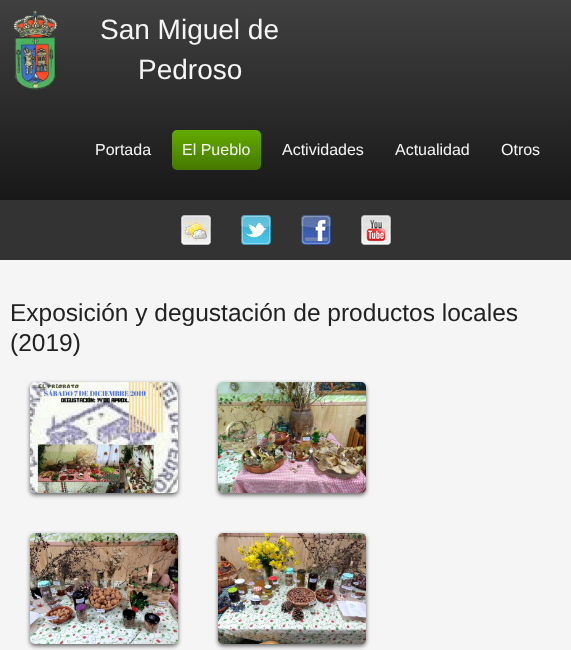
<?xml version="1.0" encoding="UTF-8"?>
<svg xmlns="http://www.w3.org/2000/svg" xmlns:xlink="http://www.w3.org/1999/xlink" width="571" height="650">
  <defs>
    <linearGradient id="g1" gradientUnits="userSpaceOnUse" x1="286" y1="0" x2="286" y2="200"><stop offset="0" stop-color="#404040" /><stop offset="1" stop-color="#181818" /></linearGradient>
    <linearGradient id="g2" gradientUnits="userSpaceOnUse" x1="217" y1="130" x2="217" y2="170"><stop offset="0" stop-color="#63ab00" /><stop offset="1" stop-color="#467800" /></linearGradient>
  </defs>
  <rect width="100%" height="100%" fill="#ffffff" />
  <rect width="571" height="200" fill="url(#g1)" />
  <image x="13" y="10" width="44" height="80" xlink:href="image1.png" />
  <rect x="172" y="130" width="89" height="40" rx="5" fill="url(#g2)" />
  <rect y="200" width="571" height="60" fill="#333333" />
  <image x="181" y="215" width="30" height="30" xlink:href="image2.png" />
  <image x="241" y="215" width="30" height="30" xlink:href="image3.png" />
  <image x="301" y="215" width="30" height="30" xlink:href="image4.png" />
  <image x="361" y="215" width="30" height="30" xlink:href="image5.png" />
  <rect y="260" width="571" height="390" fill="#f5f5f5" />
  <rect x="30" y="384" width="148" height="111" rx="5" fill="#000000" fill-opacity="0.6" filter="blur(2px)" />
  <image x="30" y="382" width="148" height="111" xlink:href="image6.png" />
  <rect x="218" y="384" width="148" height="111" rx="5" fill="#000000" fill-opacity="0.6" filter="blur(2px)" />
  <image x="218" y="382" width="148" height="111" xlink:href="image7.png" />
  <rect x="30" y="535" width="148" height="111" rx="5" fill="#000000" fill-opacity="0.6" filter="blur(2px)" />
  <image x="30" y="533" width="148" height="111" xlink:href="image8.png" />
  <rect x="218" y="535" width="148" height="111" rx="5" fill="#000000" fill-opacity="0.6" filter="blur(2px)" />
  <image x="218" y="533" width="148" height="111" xlink:href="image9.png" />
  <text x="100" y="39" style="font-family: Liberation Sans; font-size: 28px; fill: #f5f5f5">San Miguel de</text>
  <text x="138" y="79" style="font-family: Liberation Sans; font-size: 28px; fill: #f5f5f5">Pedroso</text>
  <text x="95" y="155" style="font-family: Liberation Sans; font-size: 16px; fill: #f5f5f5">Portada</text>
  <text x="182" y="155" style="font-family: Liberation Sans; font-size: 16px; fill: #f5f5f5">El Pueblo</text>
  <text x="282" y="155" style="font-family: Liberation Sans; font-size: 16px; fill: #f5f5f5">Actividades</text>
  <text x="395" y="155" style="font-family: Liberation Sans; font-size: 16px; fill: #f5f5f5">Actualidad</text>
  <text x="501" y="155" style="font-family: Liberation Sans; font-size: 16px; fill: #f5f5f5">Otros</text>
  <text x="10" y="321" style="font-family: Liberation Sans; font-size: 24.5px; fill: #222222">Exposición y degustación de productos locales</text>
  <text x="10" y="351" style="font-family: Liberation Sans; font-size: 24.5px; fill: #222222">(2019)</text>
</svg>
